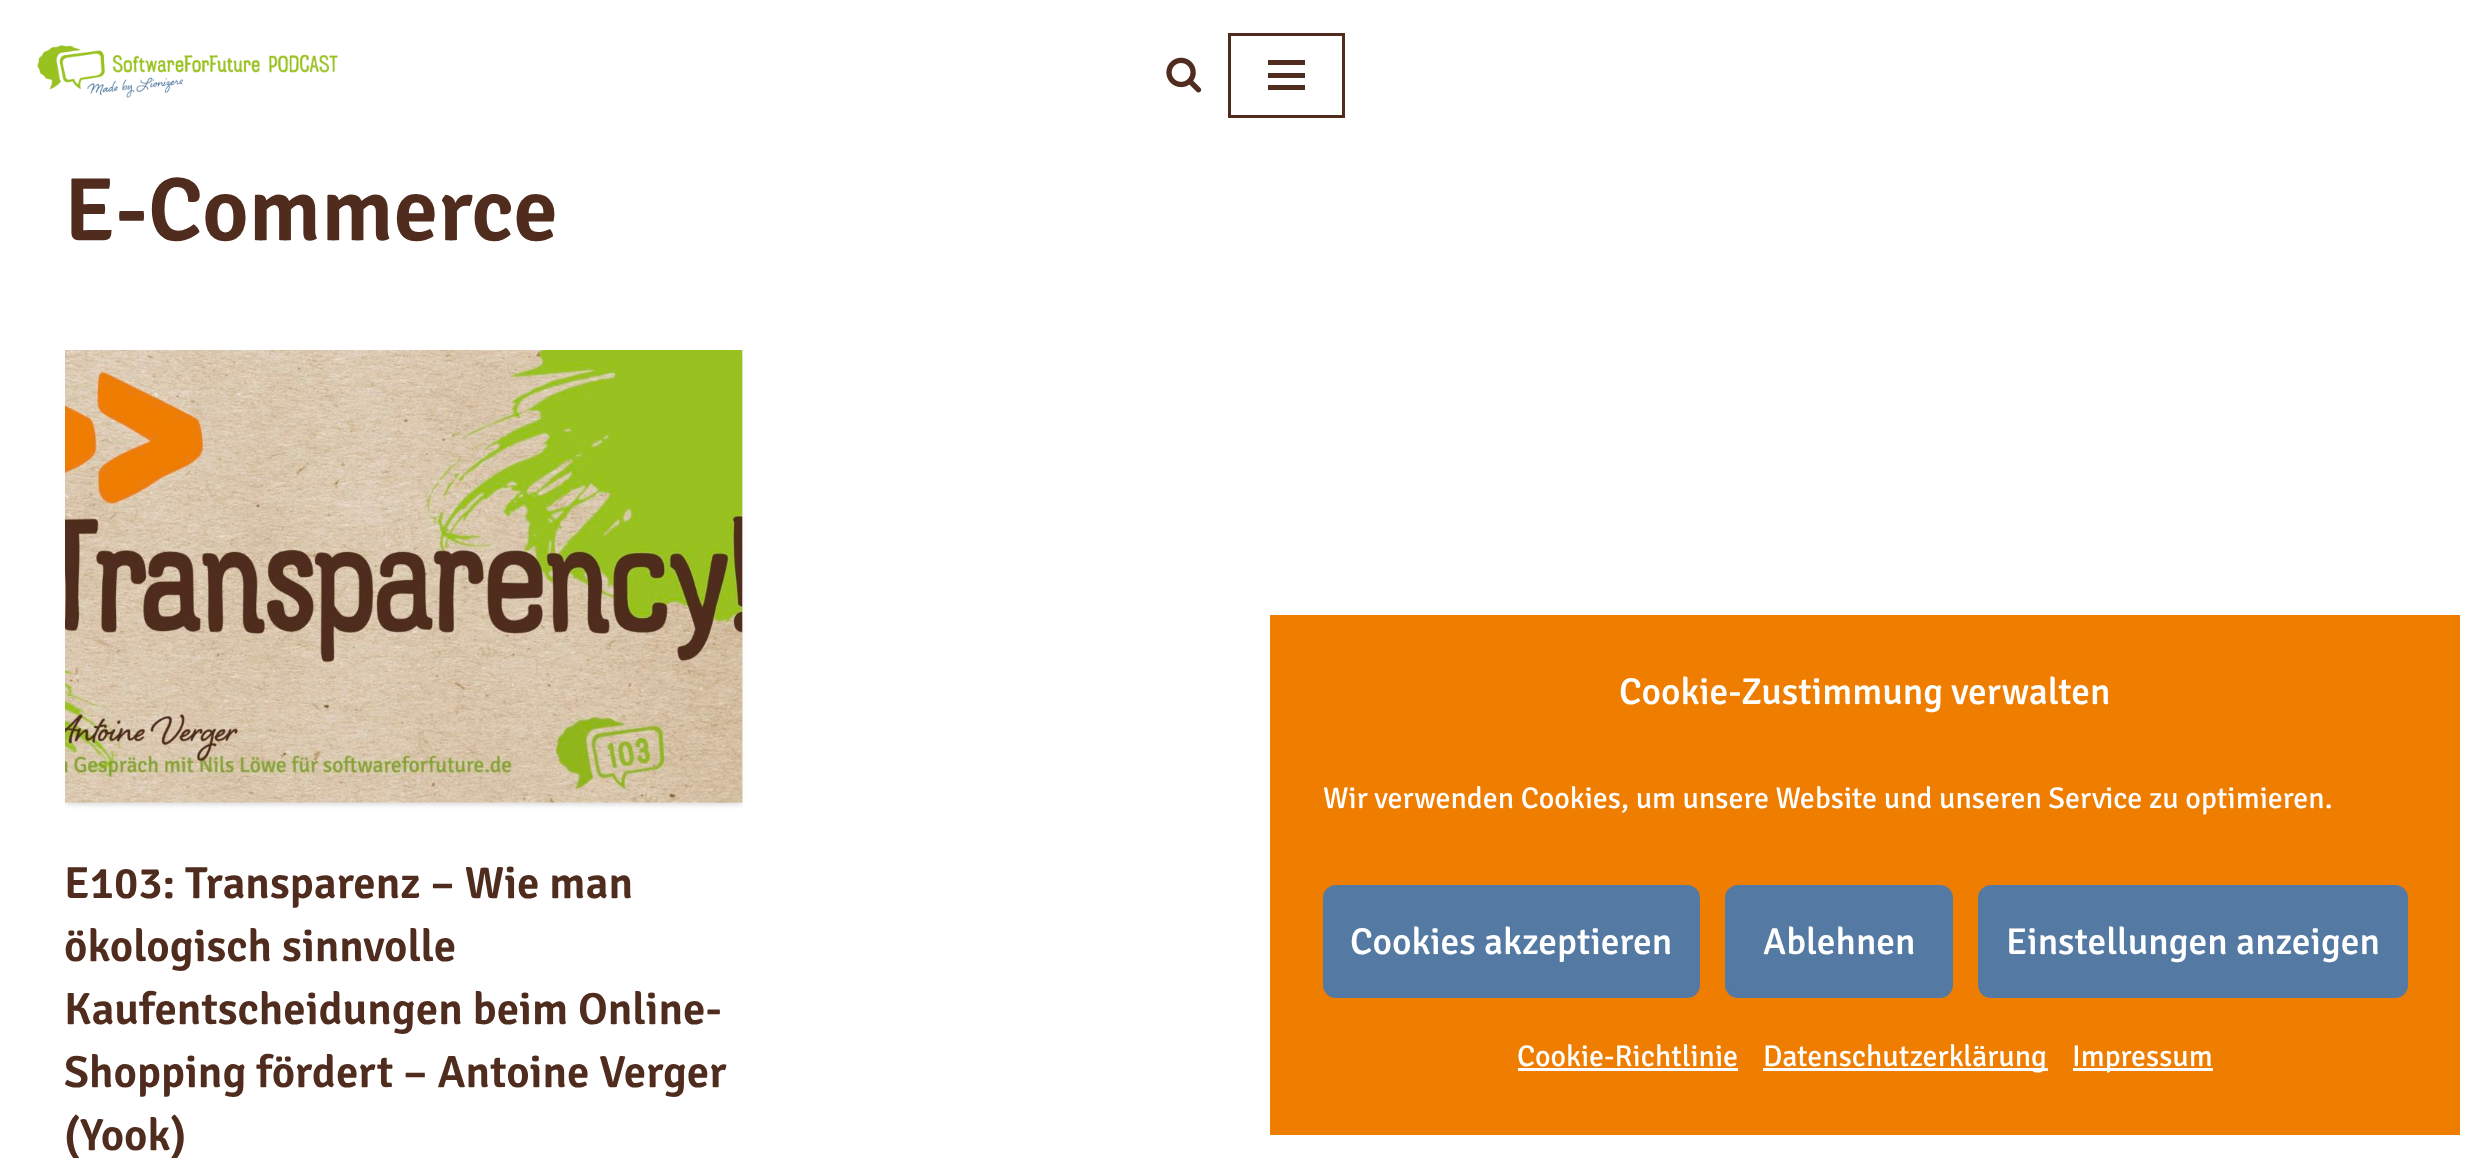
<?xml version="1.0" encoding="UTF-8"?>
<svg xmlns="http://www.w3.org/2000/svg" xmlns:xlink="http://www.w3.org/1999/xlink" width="2485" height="1158">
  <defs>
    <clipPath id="clip1"><rect x="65" y="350" width="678" height="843" /></clipPath>
  </defs>
  <rect width="100%" height="100%" fill="#ffffff" />
  <image x="37" y="45" width="301" height="53" xlink:href="image1.png" />
  <image x="1166" y="57" width="36" height="36" xlink:href="image2.png" />
  <rect x="1229.5" y="34.5" width="114" height="82" fill="none" stroke="#4f2c1d" stroke-width="3" />
  <rect x="1268" y="60" width="37" height="5" fill="#4f2c1d" />
  <rect x="1268" y="73" width="37" height="5" fill="#4f2c1d" />
  <rect x="1268" y="85" width="37" height="5" fill="#4f2c1d" />
  <g clip-path="url(#clip1)">
    <rect x="65" y="353" width="678" height="452" fill="#000000" fill-opacity="0.1" filter="blur(2.5px)" />
  </g>
  <rect x="70" y="358" width="668" height="442" fill="#000000" fill-opacity="0.12" filter="blur(4px)" />
  <image x="65" y="350" width="678" height="453" xlink:href="image3.png" />
  <rect x="1270" y="615" width="1190" height="520" fill="#ef7d00" />
  <rect x="1324.5" y="886.5" width="374" height="110" rx="11.5" fill="#547aa3" stroke="#547aa3" stroke-width="3" />
  <rect x="1726.5" y="886.5" width="225" height="110" rx="11.5" fill="#547aa3" stroke="#547aa3" stroke-width="3" />
  <rect x="1979.5" y="886.5" width="427" height="110" rx="11.5" fill="#547aa3" stroke="#547aa3" stroke-width="3" />
  <rect x="1518" y="1068" width="220" height="3" fill="#ffffff" />
  <rect x="1763" y="1068" width="285" height="3" fill="#ffffff" />
  <rect x="2073" y="1068" width="140" height="3" fill="#ffffff" />
  <text x="64" y="240" style="font-family: Signika; font-size: 90px; font-weight: 600; fill: #4f2c1d">E-Commerce</text>
  <text x="64" y="898" style="font-family: Signika; font-size: 45px; font-weight: 600; fill: #4f2c1d">E103: Transparenz – Wie man</text>
  <text x="64" y="961" style="font-family: Signika; font-size: 45px; font-weight: 600; fill: #4f2c1d">ökologisch sinnvolle</text>
  <text x="64" y="1024" style="font-family: Signika; font-size: 45px; font-weight: 600; fill: #4f2c1d">Kaufentscheidungen beim Online-</text>
  <text x="64" y="1087" style="font-family: Signika; font-size: 45px; font-weight: 600; fill: #4f2c1d">Shopping fördert – Antoine Verger</text>
  <text x="64" y="1150" style="font-family: Signika; font-size: 45px; font-weight: 600; fill: #4f2c1d">(Yook)</text>
  <text x="1619" y="704" style="font-family: Signika; font-size: 37.5px; font-weight: 500; fill: #ffffff">Cookie-Zustimmung verwalten</text>
  <text x="1323" y="808" style="font-family: Signika; font-size: 30px; fill: #ffffff">Wir verwenden Cookies, um unsere Website und unseren Service zu optimieren.</text>
  <text x="1350" y="954" style="font-family: Signika; font-size: 37.5px; font-weight: 500; fill: #ffffff">Cookies akzeptieren</text>
  <text x="1763" y="954" style="font-family: Signika; font-size: 37.5px; font-weight: 500; fill: #ffffff">Ablehnen</text>
  <text x="2006" y="954" style="font-family: Signika; font-size: 37.5px; font-weight: 500; fill: #ffffff">Einstellungen anzeigen</text>
  <text x="1517" y="1066" style="font-family: Signika; font-size: 30px; fill: #ffffff">Cookie-Richtlinie</text>
  <text x="1763" y="1066" style="font-family: Signika; font-size: 30px; fill: #ffffff">Datenschutzerklärung</text>
  <text x="2072" y="1066" style="font-family: Signika; font-size: 30px; fill: #ffffff">Impressum</text>
</svg>
